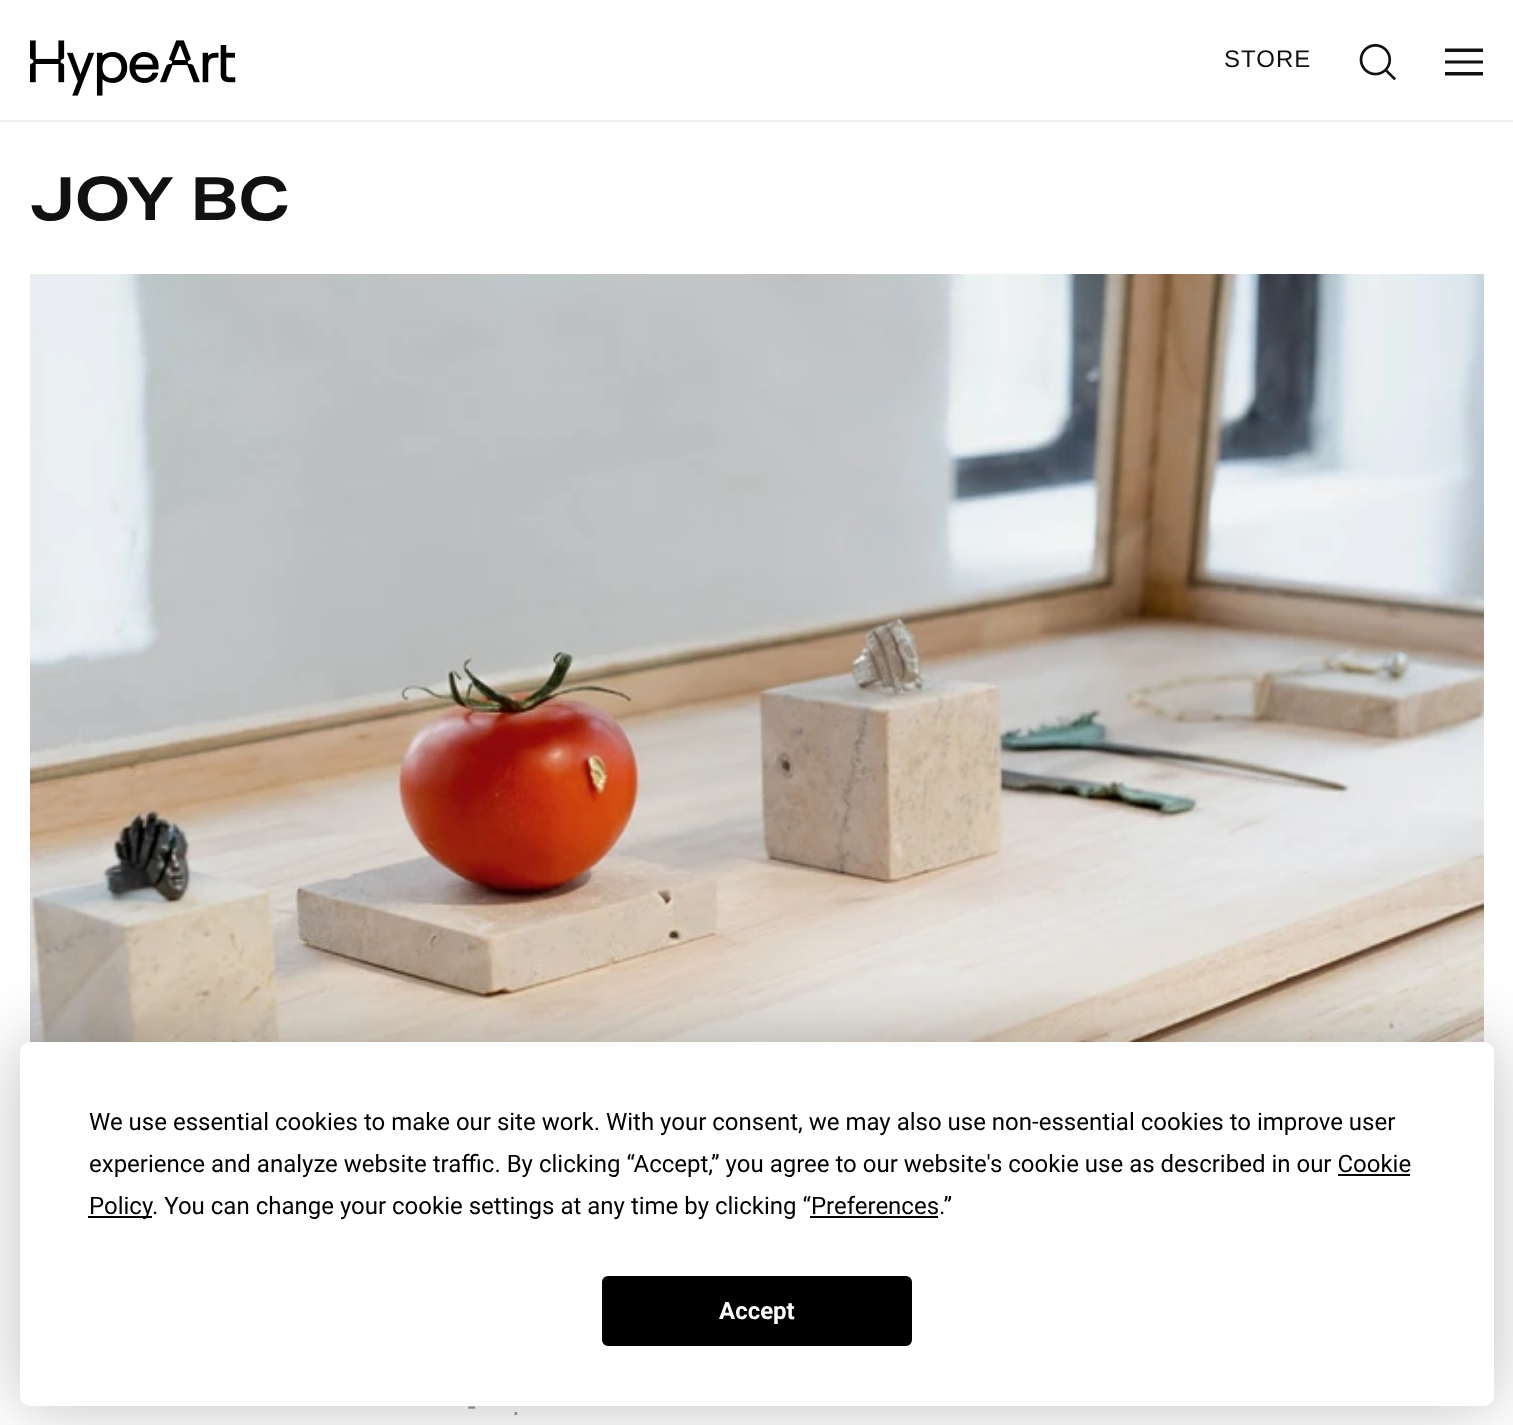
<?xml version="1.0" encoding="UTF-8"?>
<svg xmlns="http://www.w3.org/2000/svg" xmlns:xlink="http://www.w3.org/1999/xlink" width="1513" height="1425">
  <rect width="100%" height="100%" fill="#ffffff" />
  <rect y="120" width="1513" height="2" fill="#eeeeee" />
  <image x="30" y="40" width="206" height="56" xlink:href="image1.png" />
  <image x="1359" y="44" width="37" height="37" xlink:href="image2.png" />
  <path d="M 1445 48.5 h 38 v 3.5 h -38 z m 0 12 h 38 v 3 h -38 z m 0 11.5 h 38 v 3.5 h -38 z" fill="#111111" />
  <image x="30" y="274" width="1454" height="768" xlink:href="image3.png" />
  <rect x="20" y="1042" width="1474" height="364" rx="10" fill="#000000" fill-opacity="0.25" filter="blur(35px)" />
  <rect x="20" y="1042" width="1474" height="364" rx="10" fill="#ffffff" />
  <rect x="1338" y="1174" width="72" height="2" fill="#000000" />
  <rect x="88" y="1216" width="64" height="2" fill="#000000" />
  <rect x="810" y="1216" width="128" height="2" fill="#000000" />
  <rect x="603" y="1277" width="308" height="68" rx="5" fill="#000000" stroke="#000000" stroke-width="2" />
  <text x="1224" y="67" style="font-family: Liberation Sans; font-size: 24px; letter-spacing: 1px; fill: #111111">STORE</text>
  <text x="30" y="220" style="font-family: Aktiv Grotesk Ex; font-size: 60px; font-weight: bold; fill: #111111">JOY BC</text>
  <text x="467" y="1415" style="font-family: Liberation Sans; font-size: 28px; fill: #888888">-</text>
  <text x="512" y="1415" style="font-family: Liberation Sans; font-size: 28px; fill: #888888">.</text>
  <text x="89" y="1130" style="font-family: Roboto; font-size: 24px; fill: #000000">We use essential cookies to make our site work. With your consent, we may also use non-essential cookies to improve user</text>
  <text x="89" y="1172" style="font-family: Roboto; font-size: 24px; fill: #000000">experience and analyze website traffic. By clicking “Accept,” you agree to our website's cookie use as described in our Cookie</text>
  <text x="89" y="1214" style="font-family: Roboto; font-size: 24px; fill: #000000">Policy</text>
  <text x="152" y="1214" style="font-family: Roboto; font-size: 24px; fill: #000000">. You can change your cookie settings at any time by clicking “Preferences.”</text>
  <text x="719" y="1319" style="font-family: Roboto; font-size: 24px; font-weight: bold; fill: #ffffff">Accept</text>
</svg>
